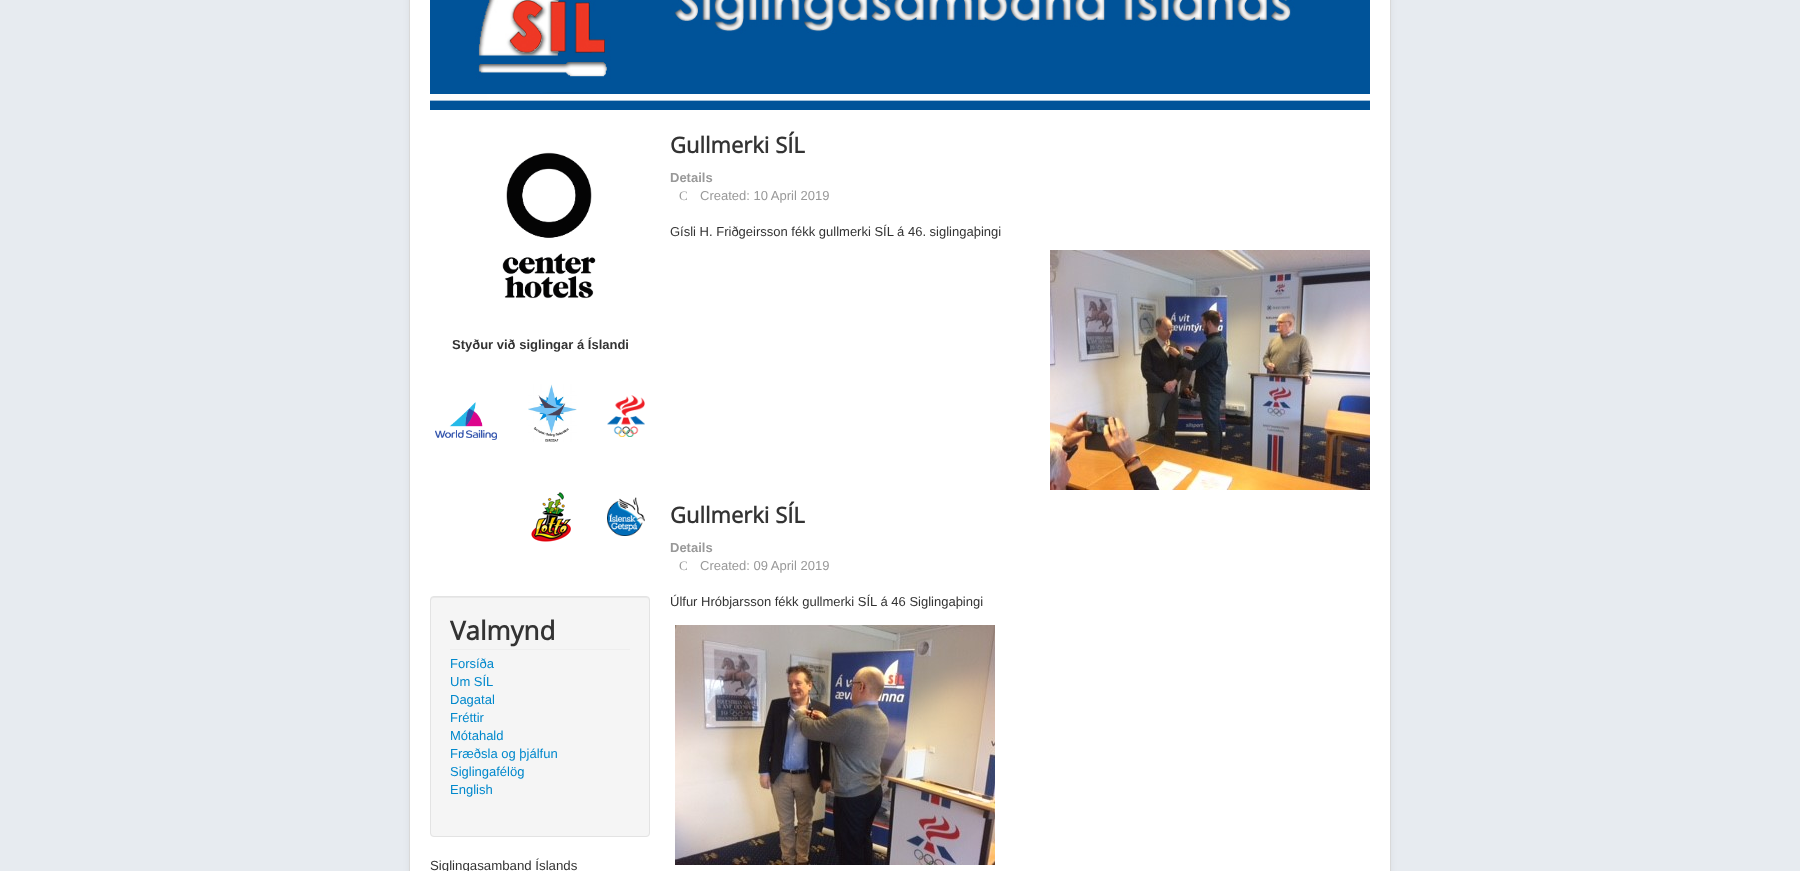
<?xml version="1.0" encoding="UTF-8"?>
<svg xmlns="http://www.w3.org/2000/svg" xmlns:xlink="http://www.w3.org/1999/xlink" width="1800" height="871">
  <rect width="100%" height="100%" fill="#e7ebf0" />
  <rect x="409" y="-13" width="982" height="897" rx="4" fill="#000000" fill-opacity="0.05" filter="blur(3px)" />
  <rect x="409.5" y="-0.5" width="981" height="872" fill="#ffffff" stroke="#d9d9d9" />
  <image x="430" y="0" width="940" height="110" xlink:href="image1.png" />
  <image x="502" y="152" width="94" height="147" xlink:href="image2.png" />
  <image x="435" y="402" width="62" height="38" xlink:href="image3.png" />
  <image x="528" y="384" width="49" height="58" xlink:href="image4.png" />
  <image x="607" y="395" width="38" height="42" xlink:href="image5.png" />
  <image x="531" y="492" width="40" height="50" xlink:href="image6.png" />
  <image x="607" y="497" width="38" height="39" xlink:href="image7.png" />
  <rect x="430" y="596" width="220" height="241" rx="4" fill="#f5f5f5" />
  <path d="M 434 598 h 212 c 2 0 3 1 3 3 v -1 c 0 -2 -1 -3 -3 -3 h -212 c -2 0 -3 1 -3 3 v 1 c 0 -2 1 -3 3 -3 z" fill="#e9e9e9" />
  <rect x="430.5" y="596.5" width="219" height="240" rx="3.5" fill="none" stroke="#e3e3e3" />
  <rect x="450" y="649" width="180" height="1" fill="#eeeeee" />
  <image x="1050" y="250" width="320" height="240" xlink:href="image8.png" />
  <image x="675" y="625" width="320" height="240" xlink:href="image9.png" />
  <text x="452" y="349" style="font-family: Liberation Sans; font-size: 13px; font-weight: bold; fill: #333333">Styður við siglingar á Íslandi</text>
  <text x="450" y="640" style="font-family: Open Sans; font-size: 26px; font-weight: bold; fill: #333333">Valmynd</text>
  <text x="450" y="668" style="font-family: Liberation Sans; font-size: 13px; fill: #0088cc">Forsíða</text>
  <text x="450" y="686" style="font-family: Liberation Sans; font-size: 13px; fill: #0088cc">Um SÍL</text>
  <text x="450" y="704" style="font-family: Liberation Sans; font-size: 13px; fill: #0088cc">Dagatal</text>
  <text x="450" y="722" style="font-family: Liberation Sans; font-size: 13px; fill: #0088cc">Fréttir</text>
  <text x="450" y="740" style="font-family: Liberation Sans; font-size: 13px; fill: #0088cc">Mótahald</text>
  <text x="450" y="758" style="font-family: Liberation Sans; font-size: 13px; fill: #0088cc">Fræðsla og þjálfun</text>
  <text x="450" y="776" style="font-family: Liberation Sans; font-size: 13px; fill: #0088cc">Siglingafélög</text>
  <text x="450" y="794" style="font-family: Liberation Sans; font-size: 13px; fill: #0088cc">English</text>
  <text x="430" y="870" style="font-family: Liberation Sans; font-size: 13.25px; fill: #333333">Siglingasamband Íslands</text>
  <text x="670" y="153" style="font-family: Open Sans; font-size: 22px; font-weight: bold; fill: #333333">Gullmerki SÍL</text>
  <text x="670" y="182" style="font-family: Liberation Sans; font-size: 13px; font-weight: bold; fill: #999999">Details</text>
  <text x="679" y="200" style="font-family: Liberation Serif; font-size: 13px; fill: #999999">C</text>
  <text x="700" y="200" style="font-family: Liberation Sans; font-size: 13px; fill: #999999">Created: 10 April 2019</text>
  <text x="670" y="236" style="font-family: Liberation Sans; font-size: 13px; fill: #333333">Gísli H. Friðgeirsson fékk gullmerki SÍL á 46. siglingaþingi</text>
  <text x="670" y="523" style="font-family: Open Sans; font-size: 22px; font-weight: bold; fill: #333333">Gullmerki SÍL</text>
  <text x="670" y="552" style="font-family: Liberation Sans; font-size: 13px; font-weight: bold; fill: #999999">Details</text>
  <text x="679" y="570" style="font-family: Liberation Serif; font-size: 13px; fill: #999999">C</text>
  <text x="700" y="570" style="font-family: Liberation Sans; font-size: 13px; fill: #999999">Created: 09 April 2019</text>
  <text x="670" y="606" style="font-family: Liberation Sans; font-size: 13px; fill: #333333">Úlfur Hróbjarsson fékk gullmerki SÍL á 46 Siglingaþingi</text>
</svg>
